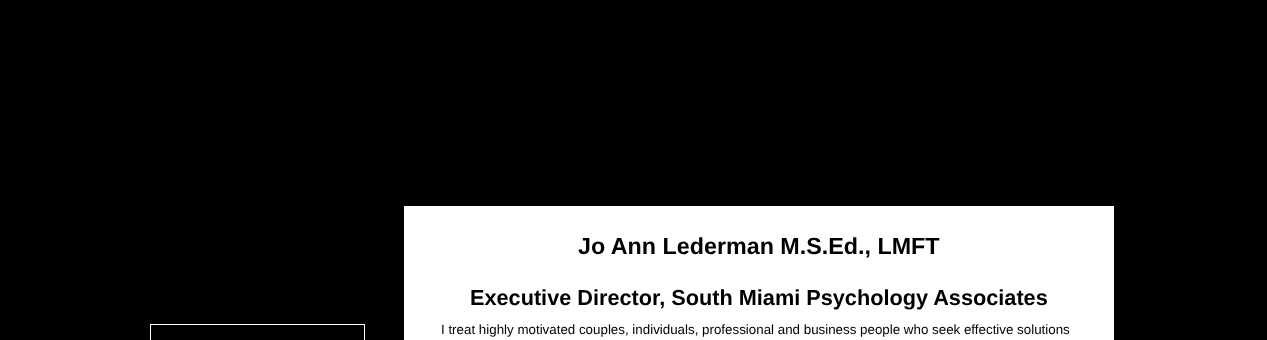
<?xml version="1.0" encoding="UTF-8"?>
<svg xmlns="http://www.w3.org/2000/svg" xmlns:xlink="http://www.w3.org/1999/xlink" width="1267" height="340">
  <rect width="100%" height="100%" fill="#000000" />
  <rect x="150.5" y="324.5" width="214" height="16" fill="none" stroke="#ffffff" />
  <rect x="404" y="206" width="710" height="134" fill="#ffffff" />
  <text x="578" y="254" style="font-family: Liberation Sans; font-size: 23.3px; font-weight: bold; fill: #000000">Jo Ann Lederman M.S.Ed., LMFT</text>
  <text x="470" y="305" style="font-family: Liberation Sans; font-size: 21.7px; font-weight: bold; fill: #000000">Executive Director, South Miami Psychology Associates</text>
  <text x="441" y="334" style="font-family: Liberation Sans; font-size: 13.35px; fill: #000000">I treat highly motivated couples, individuals, professional and business people who seek effective solutions</text>
</svg>
